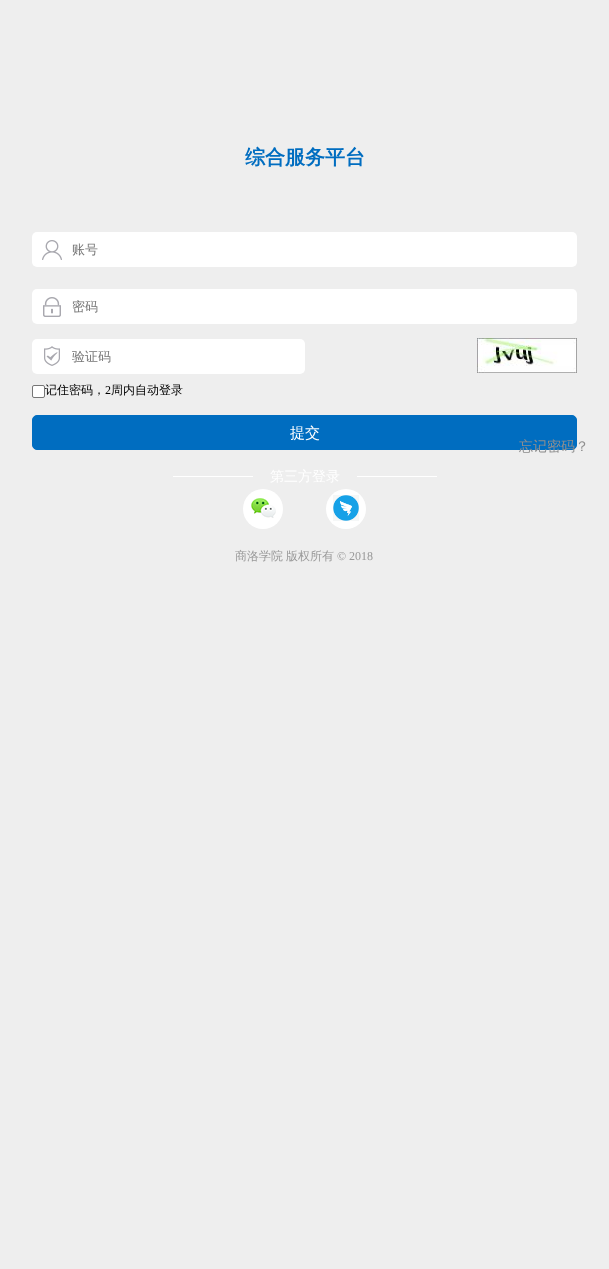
<?xml version="1.0" encoding="UTF-8"?>
<svg xmlns="http://www.w3.org/2000/svg" xmlns:xlink="http://www.w3.org/1999/xlink" width="609" height="1269">
  <rect width="100%" height="100%" fill="#eeeeee" />
  <rect x="32" y="232" width="545" height="35" rx="5" fill="#ffffff" />
  <image x="42" y="240" width="20" height="20" xlink:href="image1.png" />
  <rect x="32" y="289" width="545" height="35" rx="5" fill="#ffffff" />
  <image x="43" y="297" width="18" height="20" xlink:href="image2.png" />
  <rect x="32" y="339" width="273" height="35" rx="5" fill="#ffffff" />
  <image x="44" y="346" width="16" height="20" xlink:href="image3.png" />
  <image x="477" y="338" width="100" height="35" xlink:href="image4.png" />
  <rect x="32.5" y="385.5" width="12" height="12" rx="1.5" fill="#ffffff" stroke="#767676" />
  <rect x="32.5" y="415.5" width="544" height="34" rx="4.5" fill="#006dc0" stroke="#006dc0" />
  <image x="173" y="476" width="264" height="1" xlink:href="image5.png" />
  <circle cx="263" cy="509" r="20" fill="#ffffff" />
  <image x="251" y="498" width="25" height="20" xlink:href="image6.png" />
  <circle cx="346" cy="509" r="20" fill="#ffffff" />
  <image x="333" y="495" width="26" height="26" xlink:href="image7.png" />
  <text x="245" y="164" style="font-family: WenQuanYi Zen Hei; font-size: 20px; font-weight: bold; fill: #006dc0">综合服务平台</text>
  <text x="72" y="254" style="font-family: WenQuanYi Zen Hei; font-size: 13px; font-weight: 500; fill: #757575">账号</text>
  <text x="72" y="311" style="font-family: WenQuanYi Zen Hei; font-size: 13px; font-weight: 500; fill: #757575">密码</text>
  <text x="72" y="361" style="font-family: WenQuanYi Zen Hei; font-size: 13px; font-weight: 500; fill: #757575">验证码</text>
  <text x="45" y="394" style="font-family: WenQuanYi Zen Hei; font-size: 12px; font-weight: 500; fill: #000000">记住密码，</text>
  <text x="105" y="394" style="font-family: Liberation Serif; font-size: 12px; fill: #000000">2</text>
  <text x="111" y="394" style="font-family: WenQuanYi Zen Hei; font-size: 12px; font-weight: 500; fill: #000000">周内自动登录</text>
  <text x="290" y="438" style="font-family: WenQuanYi Zen Hei; font-size: 15px; font-weight: 500; fill: #ffffff">提交</text>
  <text x="519" y="451" style="font-family: WenQuanYi Zen Hei; font-size: 14px; font-weight: 500; fill: #8e8e8e">忘记密码？</text>
  <text x="270" y="481" style="font-family: WenQuanYi Zen Hei; font-size: 14px; font-weight: 500; fill: #ffffff">第三方登录</text>
  <text x="235" y="560" style="font-family: WenQuanYi Zen Hei; font-size: 12px; font-weight: 500; fill: #999999">商洛学院</text>
  <text x="286" y="560" style="font-family: WenQuanYi Zen Hei; font-size: 12px; font-weight: 500; fill: #999999">版权所有</text>
  <text x="337" y="560" style="font-family: Liberation Serif; font-size: 12px; fill: #999999">© 2018</text>
</svg>
